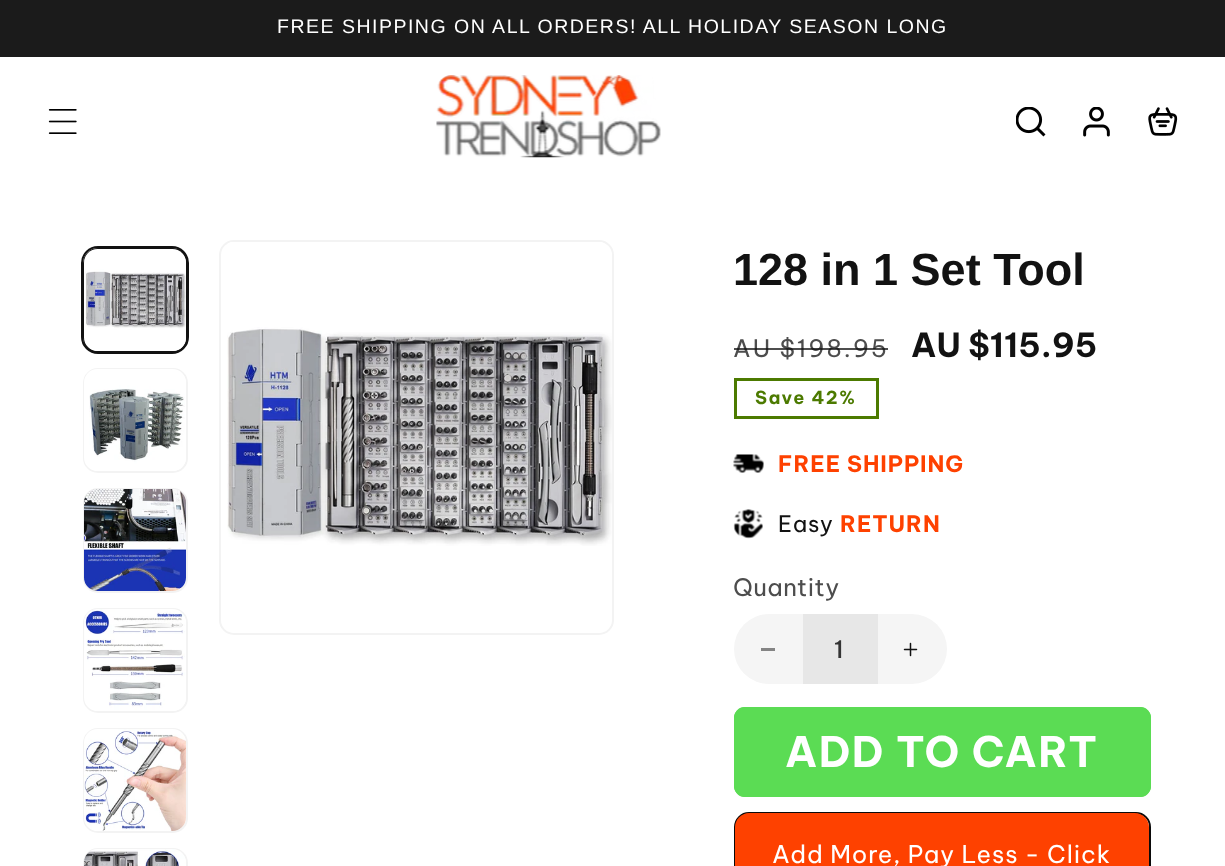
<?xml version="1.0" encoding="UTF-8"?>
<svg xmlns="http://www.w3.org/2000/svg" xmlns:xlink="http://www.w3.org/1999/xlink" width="1225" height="866">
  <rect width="100%" height="100%" fill="#ffffff" />
  <rect width="1225" height="57" fill="#1b1b1b" />
  <image x="48" y="109" width="29" height="25" xlink:href="image1.png" />
  <image x="436" y="75" width="225" height="83" xlink:href="image2.png" />
  <image x="1016" y="107" width="30" height="30" xlink:href="image3.png" />
  <image x="1083" y="107" width="27" height="30" xlink:href="image4.png" />
  <image x="1148" y="107" width="30" height="29" xlink:href="image5.png" />
  <rect x="82" y="247" width="106" height="106" rx="16" fill="none" stroke="#121212" stroke-width="2" />
  <rect x="84" y="249" width="103" height="103" rx="14" fill="none" stroke="#121212" stroke-width="2" />
  <image x="84" y="249" width="102" height="102" xlink:href="image6.png" />
  <rect x="84" y="369" width="103" height="103" rx="14" fill="none" stroke="#f3f3f3" stroke-width="2" />
  <image x="84" y="369" width="102" height="102" xlink:href="image7.png" />
  <rect x="84" y="489" width="103" height="103" rx="14" fill="none" stroke="#f3f3f3" stroke-width="2" />
  <image x="84" y="489" width="102" height="102" xlink:href="image8.png" />
  <rect x="84" y="609" width="103" height="103" rx="14" fill="none" stroke="#f3f3f3" stroke-width="2" />
  <image x="84" y="609" width="102" height="102" xlink:href="image9.png" />
  <rect x="84" y="729" width="103" height="103" rx="14" fill="none" stroke="#f3f3f3" stroke-width="2" />
  <image x="84" y="729" width="102" height="102" xlink:href="image10.png" />
  <rect x="84" y="849" width="103" height="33" rx="14" fill="none" stroke="#f3f3f3" stroke-width="2" />
  <image x="84" y="849" width="102" height="17" xlink:href="image11.png" />
  <rect x="220" y="241" width="393" height="393" rx="14" fill="none" stroke="#f3f3f3" stroke-width="2" />
  <image x="227" y="242" width="385" height="304" xlink:href="image12.png" />
  <rect x="735.5" y="379.5" width="142" height="38" fill="none" stroke="#4c7a00" stroke-width="3" />
  <image x="733" y="454" width="31" height="19" xlink:href="image13.png" />
  <image x="733" y="509" width="30" height="30" xlink:href="image14.png" />
  <rect x="734" y="614" width="213" height="70" rx="35" fill="#f5f5f5" />
  <rect x="761" y="648" width="14" height="3" fill="#848484" />
  <rect x="803" y="614" width="75" height="70" fill="#e7e7e7" />
  <image x="903" y="642" width="15" height="15" xlink:href="image15.png" />
  <rect x="734" y="707" width="417" height="90" rx="11" fill="#5bdc54" />
  <rect x="735" y="708" width="415" height="88" rx="10" fill="none" stroke="#5bdc54" stroke-width="2" />
  <rect x="735" y="813" width="415" height="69" rx="14" fill="none" stroke="#0b0a0a" stroke-width="2" />
  <path d="M 749 813 h 386 c 7.5 0 14 6.5 14 14 v 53 h -414 v -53 c 0 -7.5 6.5 -14 14 -14 z" fill="#fe4100" />
  <text x="277" y="33" style="font-family: Liberation Sans; font-size: 19.5px; letter-spacing: 1.5px; fill: #ffffff">FREE SHIPPING ON ALL ORDERS! ALL HOLIDAY SEASON LONG</text>
  <text x="733" y="285" style="font-family: Liberation Sans; font-size: 45px; font-weight: bold; fill: #121212">128 in 1 Set Tool</text>
  <text x="733" y="357" style="font-family: Be Vietnam Pro; font-size: 24px; letter-spacing: 2px; fill: #4d4d4d">AU $198.95</text>
  <rect x="734" y="348" width="154" height="2" fill="#121212" fill-opacity="0.75" />
  <text x="911" y="357" style="font-family: Be Vietnam Pro; font-size: 33px; font-weight: bold; fill: #121212">AU $115.95</text>
  <text x="755" y="404" style="font-family: Be Vietnam Pro; font-size: 18px; font-weight: bold; letter-spacing: 1.5px; fill: #4c7a00">Save 42%</text>
  <text x="778" y="472" style="font-family: Be Vietnam Pro; font-size: 22.5px; font-weight: bold; letter-spacing: 0.9px; fill: #fe4100">FREE SHIPPING</text>
  <text x="778" y="532" style="font-family: Be Vietnam Pro; font-size: 22.5px; letter-spacing: 0.9px; fill: #121212">Easy</text>
  <text x="840" y="532" style="font-family: Be Vietnam Pro; font-size: 22.5px; font-weight: bold; letter-spacing: 0.9px; fill: #fe4100">RETURN</text>
  <text x="733" y="596" style="font-family: Be Vietnam Pro; font-size: 24px; letter-spacing: 0.5px; fill: #4d4d4d">Quantity</text>
  <text x="834" y="658" style="font-family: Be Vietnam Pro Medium; font-size: 24px; font-weight: 500; fill: #343434">1</text>
  <text x="785" y="767" style="font-family: Be Vietnam Pro; font-size: 42px; font-weight: bold; letter-spacing: 1.5px; fill: #ffffff">ADD TO CART</text>
  <text x="772" y="863" style="font-family: Be Vietnam Pro; font-size: 24.25px; letter-spacing: 0.9px; fill: #ffffff">Add More, Pay Less - Click</text>
</svg>
